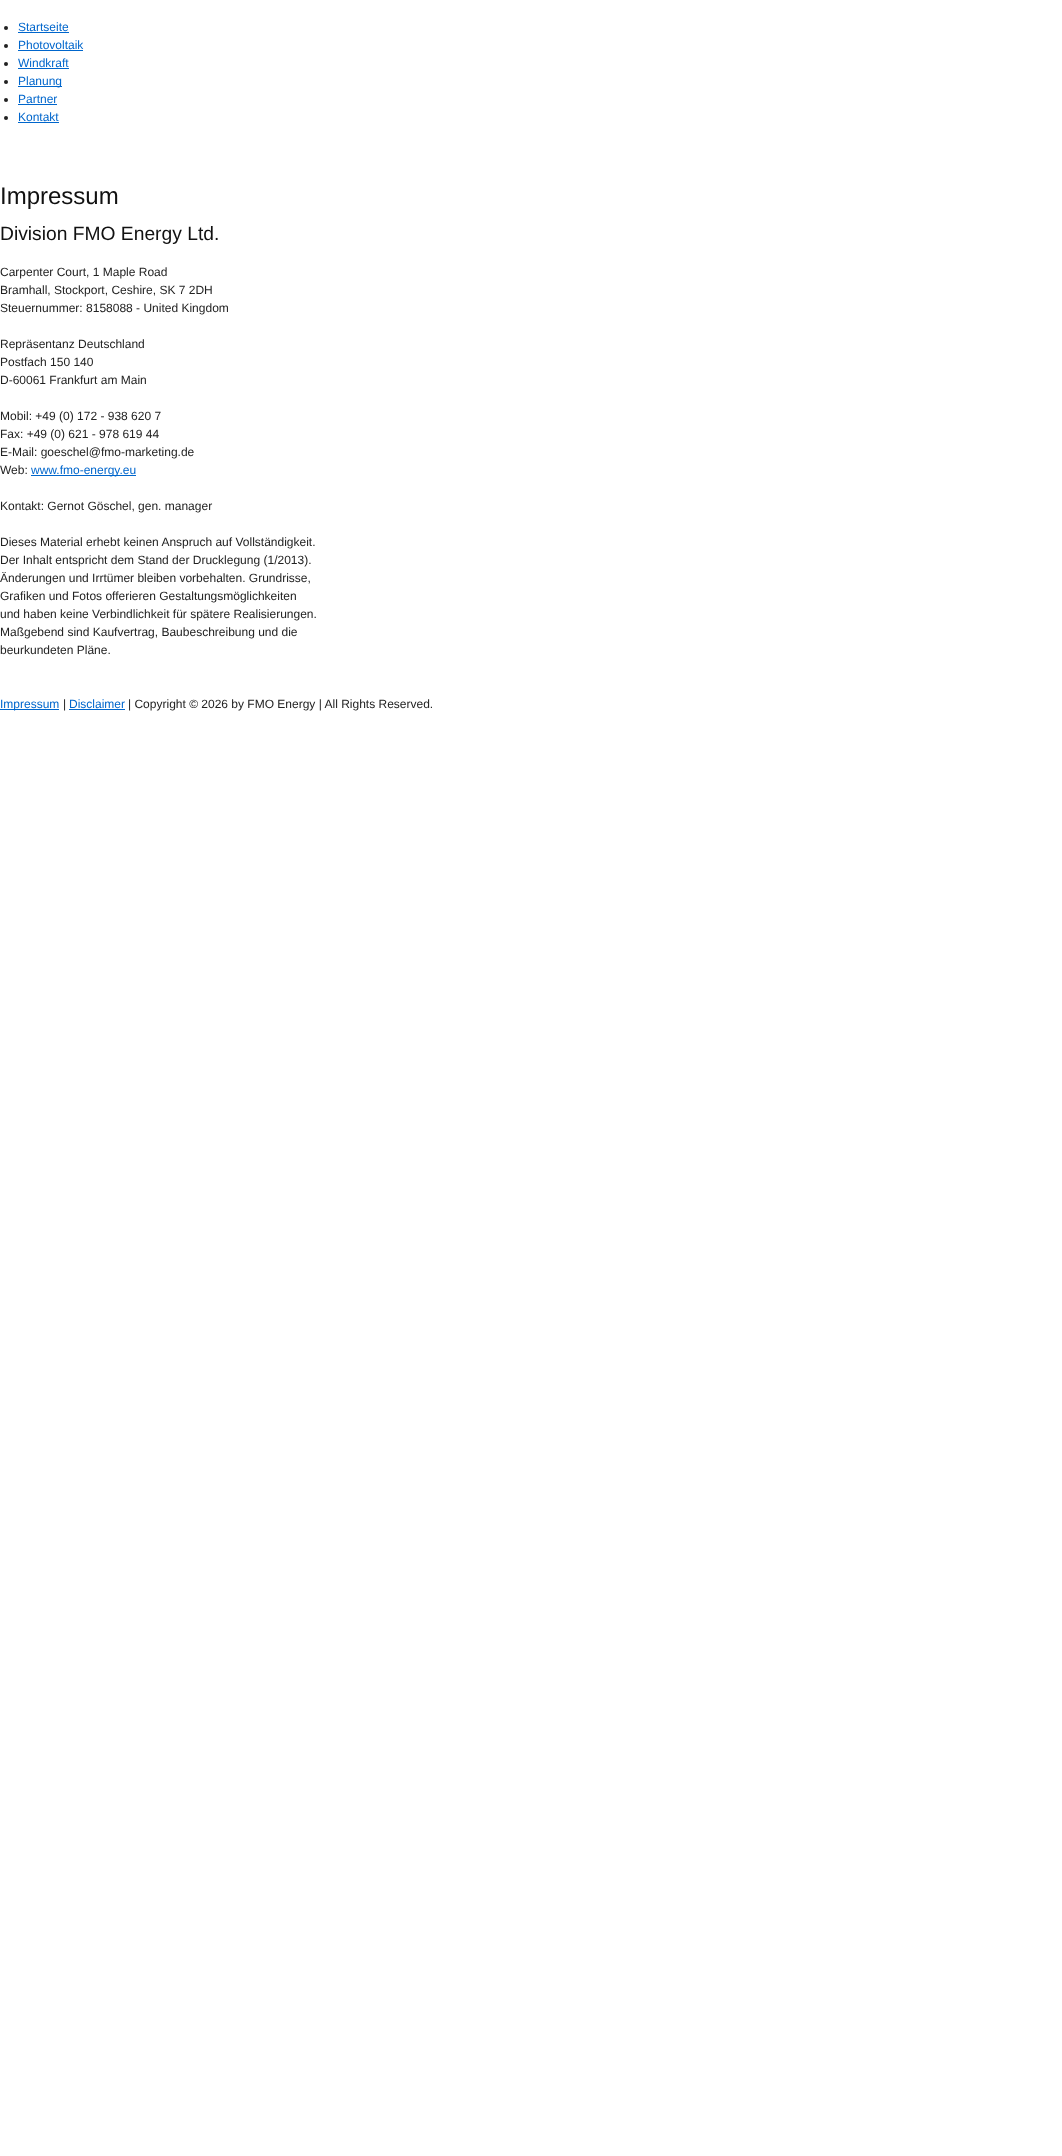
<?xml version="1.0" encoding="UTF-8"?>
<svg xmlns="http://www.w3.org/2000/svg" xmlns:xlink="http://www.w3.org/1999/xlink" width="1062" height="2156">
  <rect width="100%" height="100%" fill="#ffffff" />
  <circle cx="6" cy="28" r="2" fill="#222222" />
  <rect x="18" y="32" width="51" height="1" fill="#0066cc" />
  <circle cx="6" cy="46" r="2" fill="#222222" />
  <rect x="18" y="50" width="65" height="1" fill="#0066cc" />
  <circle cx="6" cy="64" r="2" fill="#222222" />
  <rect x="18" y="68" width="51" height="1" fill="#0066cc" />
  <circle cx="6" cy="82" r="2" fill="#222222" />
  <rect x="18" y="86" width="44" height="1" fill="#0066cc" />
  <circle cx="6" cy="100" r="2" fill="#222222" />
  <rect x="18" y="104" width="39" height="1" fill="#0066cc" />
  <circle cx="6" cy="118" r="2" fill="#222222" />
  <rect x="18" y="122" width="41" height="1" fill="#0066cc" />
  <rect x="31" y="475" width="105" height="1" fill="#0066cc" />
  <rect y="709" width="59" height="1" fill="#0066cc" />
  <rect x="69" y="709" width="56" height="1" fill="#0066cc" />
  <text x="18" y="31" style="font-family: Liberation Sans; font-size: 12px; fill: #0066cc">Startseite</text>
  <text x="18" y="49" style="font-family: Liberation Sans; font-size: 12px; fill: #0066cc">Photovoltaik</text>
  <text x="18" y="67" style="font-family: Liberation Sans; font-size: 12px; fill: #0066cc">Windkraft</text>
  <text x="18" y="85" style="font-family: Liberation Sans; font-size: 12px; fill: #0066cc">Planung</text>
  <text x="18" y="103" style="font-family: Liberation Sans; font-size: 12px; fill: #0066cc">Partner</text>
  <text x="18" y="121" style="font-family: Liberation Sans; font-size: 12px; fill: #0066cc">Kontakt</text>
  <text x="0" y="204" style="font-family: Liberation Sans; font-size: 24px; fill: #111111">Impressum</text>
  <text x="0" y="240" style="font-family: Liberation Sans; font-size: 19.25px; fill: #111111">Division FMO Energy Ltd.</text>
  <text x="0" y="276" style="font-family: Liberation Sans; font-size: 12px; fill: #222222">Carpenter Court, 1 Maple Road</text>
  <text x="0" y="294" style="font-family: Liberation Sans; font-size: 12px; fill: #222222">Bramhall, Stockport, Ceshire, SK 7 2DH</text>
  <text x="0" y="312" style="font-family: Liberation Sans; font-size: 12px; fill: #222222">Steuernummer: 8158088 - United Kingdom</text>
  <text x="0" y="348" style="font-family: Liberation Sans; font-size: 12px; fill: #222222">Repräsentanz Deutschland</text>
  <text x="0" y="366" style="font-family: Liberation Sans; font-size: 12px; fill: #222222">Postfach 150 140</text>
  <text x="0" y="384" style="font-family: Liberation Sans; font-size: 12px; fill: #222222">D-60061 Frankfurt am Main</text>
  <text x="0" y="420" style="font-family: Liberation Sans; font-size: 12px; fill: #222222">Mobil: +49 (0) 172 - 938 620 7</text>
  <text x="0" y="438" style="font-family: Liberation Sans; font-size: 12px; fill: #222222">Fax: +49 (0) 621 - 978 619 44</text>
  <text x="0" y="456" style="font-family: Liberation Sans; font-size: 12px; fill: #222222">E-Mail: goeschel@fmo-marketing.de</text>
  <text x="0" y="474" style="font-family: Liberation Sans; font-size: 12px; fill: #222222">Web:</text>
  <text x="31" y="474" style="font-family: Liberation Sans; font-size: 12px; fill: #0066cc">www.fmo-energy.eu</text>
  <text x="0" y="510" style="font-family: Liberation Sans; font-size: 12px; fill: #222222">Kontakt: Gernot Göschel, gen. manager</text>
  <text x="0" y="546" style="font-family: Liberation Sans; font-size: 12px; fill: #222222">Dieses Material erhebt keinen Anspruch auf Vollständigkeit.</text>
  <text x="0" y="564" style="font-family: Liberation Sans; font-size: 12px; fill: #222222">Der Inhalt entspricht dem Stand der Drucklegung (1/2013).</text>
  <text x="0" y="582" style="font-family: Liberation Sans; font-size: 12px; fill: #222222">Änderungen und Irrtümer bleiben vorbehalten. Grundrisse,</text>
  <text x="0" y="600" style="font-family: Liberation Sans; font-size: 12px; fill: #222222">Grafiken und Fotos offerieren Gestaltungsmöglichkeiten</text>
  <text x="0" y="618" style="font-family: Liberation Sans; font-size: 12px; fill: #222222">und haben keine Verbindlichkeit für spätere Realisierungen.</text>
  <text x="0" y="636" style="font-family: Liberation Sans; font-size: 12px; fill: #222222">Maßgebend sind Kaufvertrag, Baubeschreibung und die</text>
  <text x="0" y="654" style="font-family: Liberation Sans; font-size: 12px; fill: #222222">beurkundeten Pläne.</text>
  <text x="0" y="708" style="font-family: Liberation Sans; font-size: 12px; fill: #0066cc">Impressum</text>
  <text x="63" y="708" style="font-family: Liberation Sans; font-size: 12px; fill: #222222">|</text>
  <text x="69" y="708" style="font-family: Liberation Sans; font-size: 12px; fill: #0066cc">Disclaimer</text>
  <text x="128" y="708" style="font-family: Liberation Sans; font-size: 12px; fill: #222222">| Copyright © 2026 by FMO Energy | All Rights Reserved.</text>
</svg>
